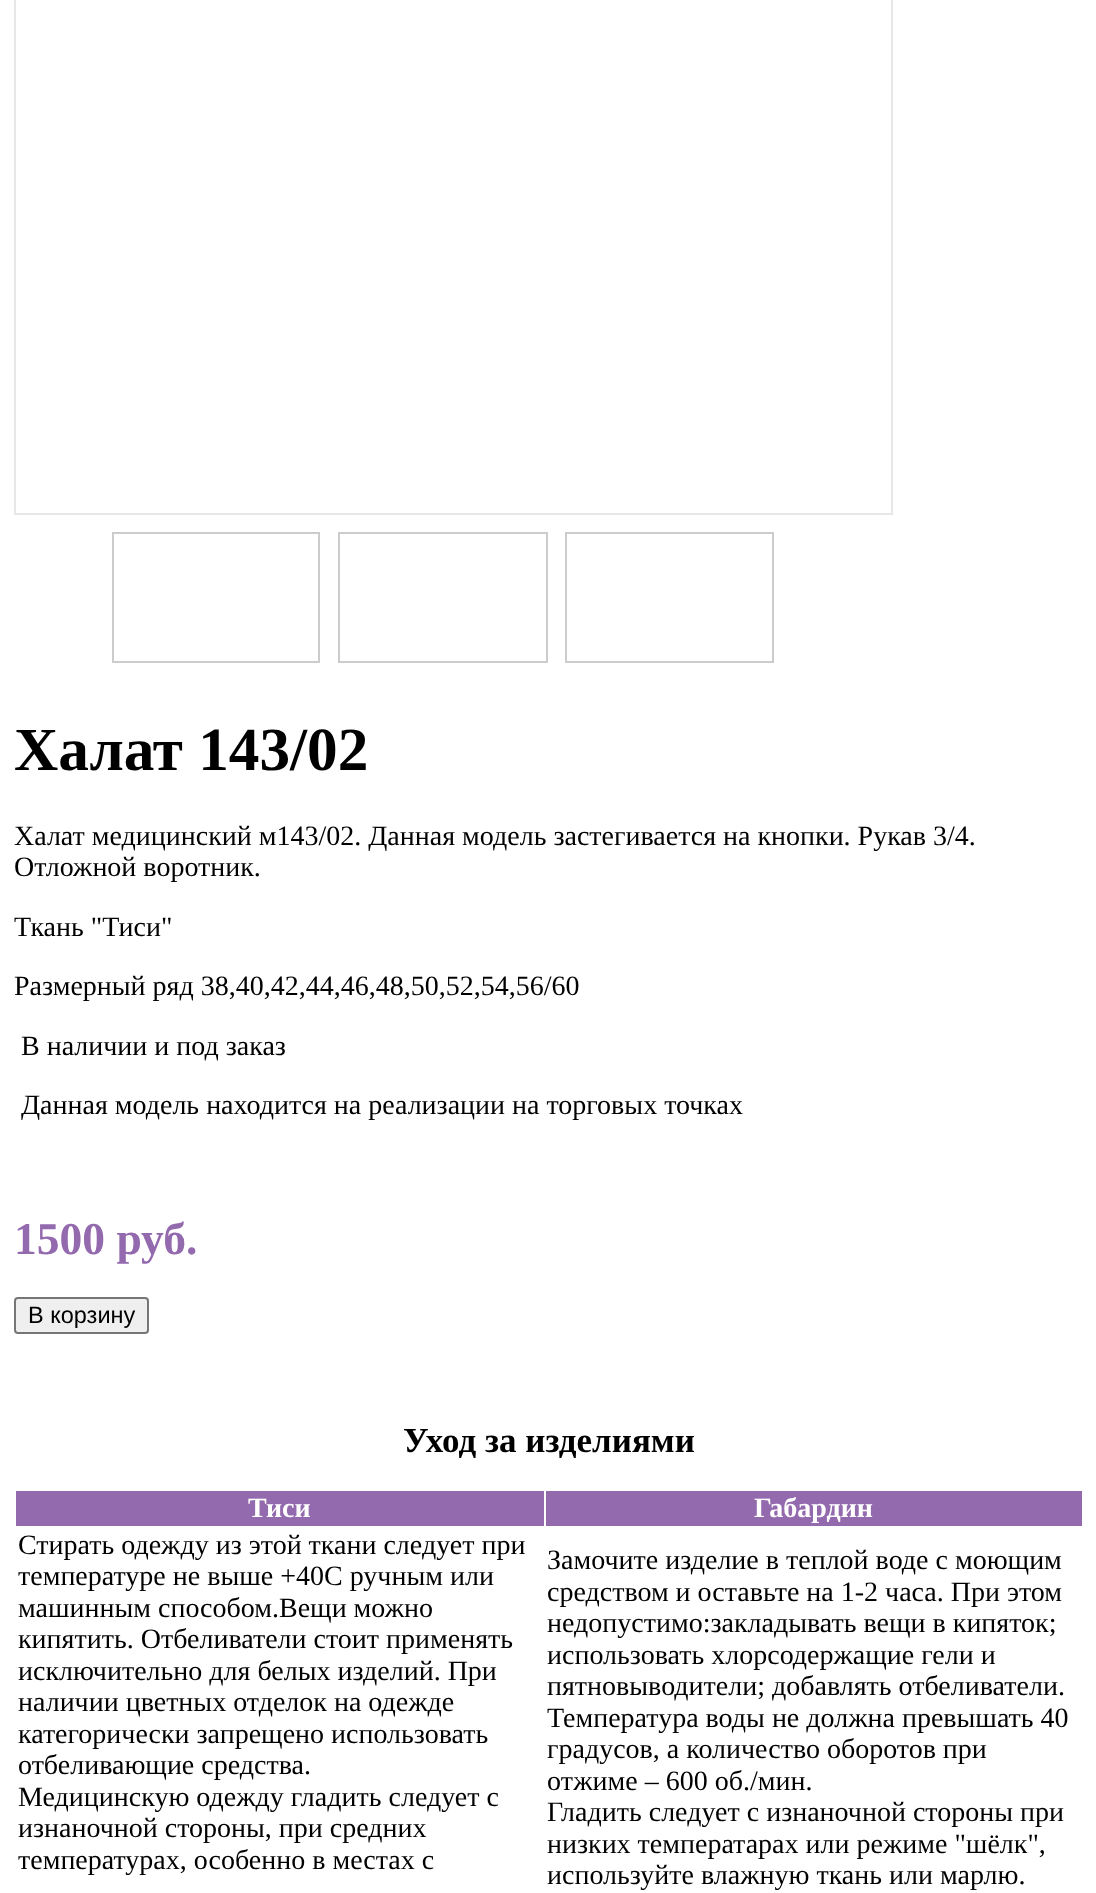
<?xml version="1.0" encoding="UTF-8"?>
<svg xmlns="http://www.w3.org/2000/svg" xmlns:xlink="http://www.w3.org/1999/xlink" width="1096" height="1893">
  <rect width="100%" height="100%" fill="#ffffff" />
  <rect x="15" y="-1" width="877" height="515" fill="none" stroke="#e7e7e7" stroke-width="2" />
  <rect x="113" y="533" width="206" height="129" fill="none" stroke="#cccccc" stroke-width="2" />
  <rect x="339" y="533" width="208" height="129" fill="none" stroke="#cccccc" stroke-width="2" />
  <rect x="566" y="533" width="207" height="129" fill="none" stroke="#cccccc" stroke-width="2" />
  <rect x="15" y="1298" width="133" height="35" rx="3" fill="#efefef" stroke="#767676" stroke-width="2" />
  <rect x="16" y="1491" width="528" height="35" fill="#946aaf" />
  <rect x="546" y="1491" width="536" height="35" fill="#946aaf" />
  <text x="14" y="770" style="font-family: Liberation Serif; font-size: 61.25px; font-weight: bold; fill: #000000">Халат 143/02</text>
  <text x="14" y="845" style="font-family: Liberation Serif; font-size: 28px; fill: #000000">Халат медицинский м143/02. Данная модель застегивается на кнопки. Рукав 3/4.</text>
  <text x="14" y="876" style="font-family: Liberation Serif; font-size: 28px; fill: #000000">Отложной воротник.</text>
  <text x="14" y="936" style="font-family: Liberation Serif; font-size: 28px; fill: #000000">Ткань "Тиси"</text>
  <text x="14" y="995" style="font-family: Liberation Serif; font-size: 28px; fill: #000000">Размерный ряд 38,40,42,44,46,48,50,52,54,56/60</text>
  <text x="21" y="1055" style="font-family: Liberation Serif; font-size: 28px; fill: #000000">В наличии и под заказ</text>
  <text x="21" y="1114" style="font-family: Liberation Serif; font-size: 28px; fill: #000000">Данная модель находится на реализации на торговых точках</text>
  <text x="14" y="1254" style="font-family: Liberation Serif; font-size: 45.5px; font-weight: bold; fill: #946aaf">1500 руб.</text>
  <text x="28" y="1323" style="font-family: Liberation Sans; font-size: 23.5px; fill: #000000">В корзину</text>
  <text x="403" y="1452" style="font-family: Liberation Serif; font-size: 35px; font-weight: bold; fill: #000000">Уход за изделиями</text>
  <text x="248" y="1517" style="font-family: Liberation Serif; font-size: 28px; font-weight: bold; fill: #ffffff">Тиси</text>
  <text x="754" y="1517" style="font-family: Liberation Serif; font-size: 28px; font-weight: bold; fill: #ffffff">Габардин</text>
  <text x="18" y="1554" style="font-family: Liberation Serif; font-size: 28px; fill: #000000">Стирать одежду из этой ткани следует при</text>
  <text x="18" y="1585" style="font-family: Liberation Serif; font-size: 28px; fill: #000000">температуре не выше +40C ручным или</text>
  <text x="18" y="1617" style="font-family: Liberation Serif; font-size: 28px; fill: #000000">машинным способом.Вещи можно</text>
  <text x="18" y="1648" style="font-family: Liberation Serif; font-size: 28px; fill: #000000">кипятить. Отбеливатели стоит применять</text>
  <text x="18" y="1680" style="font-family: Liberation Serif; font-size: 28px; fill: #000000">исключительно для белых изделий. При</text>
  <text x="18" y="1711" style="font-family: Liberation Serif; font-size: 28px; fill: #000000">наличии цветных отделок на одежде</text>
  <text x="18" y="1743" style="font-family: Liberation Serif; font-size: 28px; fill: #000000">категорически запрещено использовать</text>
  <text x="18" y="1774" style="font-family: Liberation Serif; font-size: 28px; fill: #000000">отбеливающие средства.</text>
  <text x="18" y="1806" style="font-family: Liberation Serif; font-size: 28px; fill: #000000">Медицинскую одежду гладить следует с</text>
  <text x="18" y="1837" style="font-family: Liberation Serif; font-size: 28px; fill: #000000">изнаночной стороны, при средних</text>
  <text x="18" y="1869" style="font-family: Liberation Serif; font-size: 28px; fill: #000000">температурах, особенно в местах с</text>
  <text x="547" y="1569" style="font-family: Liberation Serif; font-size: 28px; fill: #000000">Замочите изделие в теплой воде с моющим</text>
  <text x="547" y="1601" style="font-family: Liberation Serif; font-size: 28px; fill: #000000">средством и оставьте на 1-2 часа. При этом</text>
  <text x="547" y="1632" style="font-family: Liberation Serif; font-size: 28px; fill: #000000">недопустимо:закладывать вещи в кипяток;</text>
  <text x="547" y="1664" style="font-family: Liberation Serif; font-size: 28px; fill: #000000">использовать хлорсодержащие гели и</text>
  <text x="547" y="1695" style="font-family: Liberation Serif; font-size: 28px; fill: #000000">пятновыводители; добавлять отбеливатели.</text>
  <text x="547" y="1727" style="font-family: Liberation Serif; font-size: 28px; fill: #000000">Температура воды не должна превышать 40</text>
  <text x="547" y="1758" style="font-family: Liberation Serif; font-size: 28px; fill: #000000">градусов, а количество оборотов при</text>
  <text x="547" y="1790" style="font-family: Liberation Serif; font-size: 28px; fill: #000000">отжиме – 600 об./мин.</text>
  <text x="547" y="1821" style="font-family: Liberation Serif; font-size: 28px; fill: #000000">Гладить следует с изнаночной стороны при</text>
  <text x="547" y="1853" style="font-family: Liberation Serif; font-size: 28px; fill: #000000">низких температарах или режиме "шёлк",</text>
  <text x="547" y="1884" style="font-family: Liberation Serif; font-size: 28px; fill: #000000">используйте влажную ткань или марлю.</text>
</svg>
